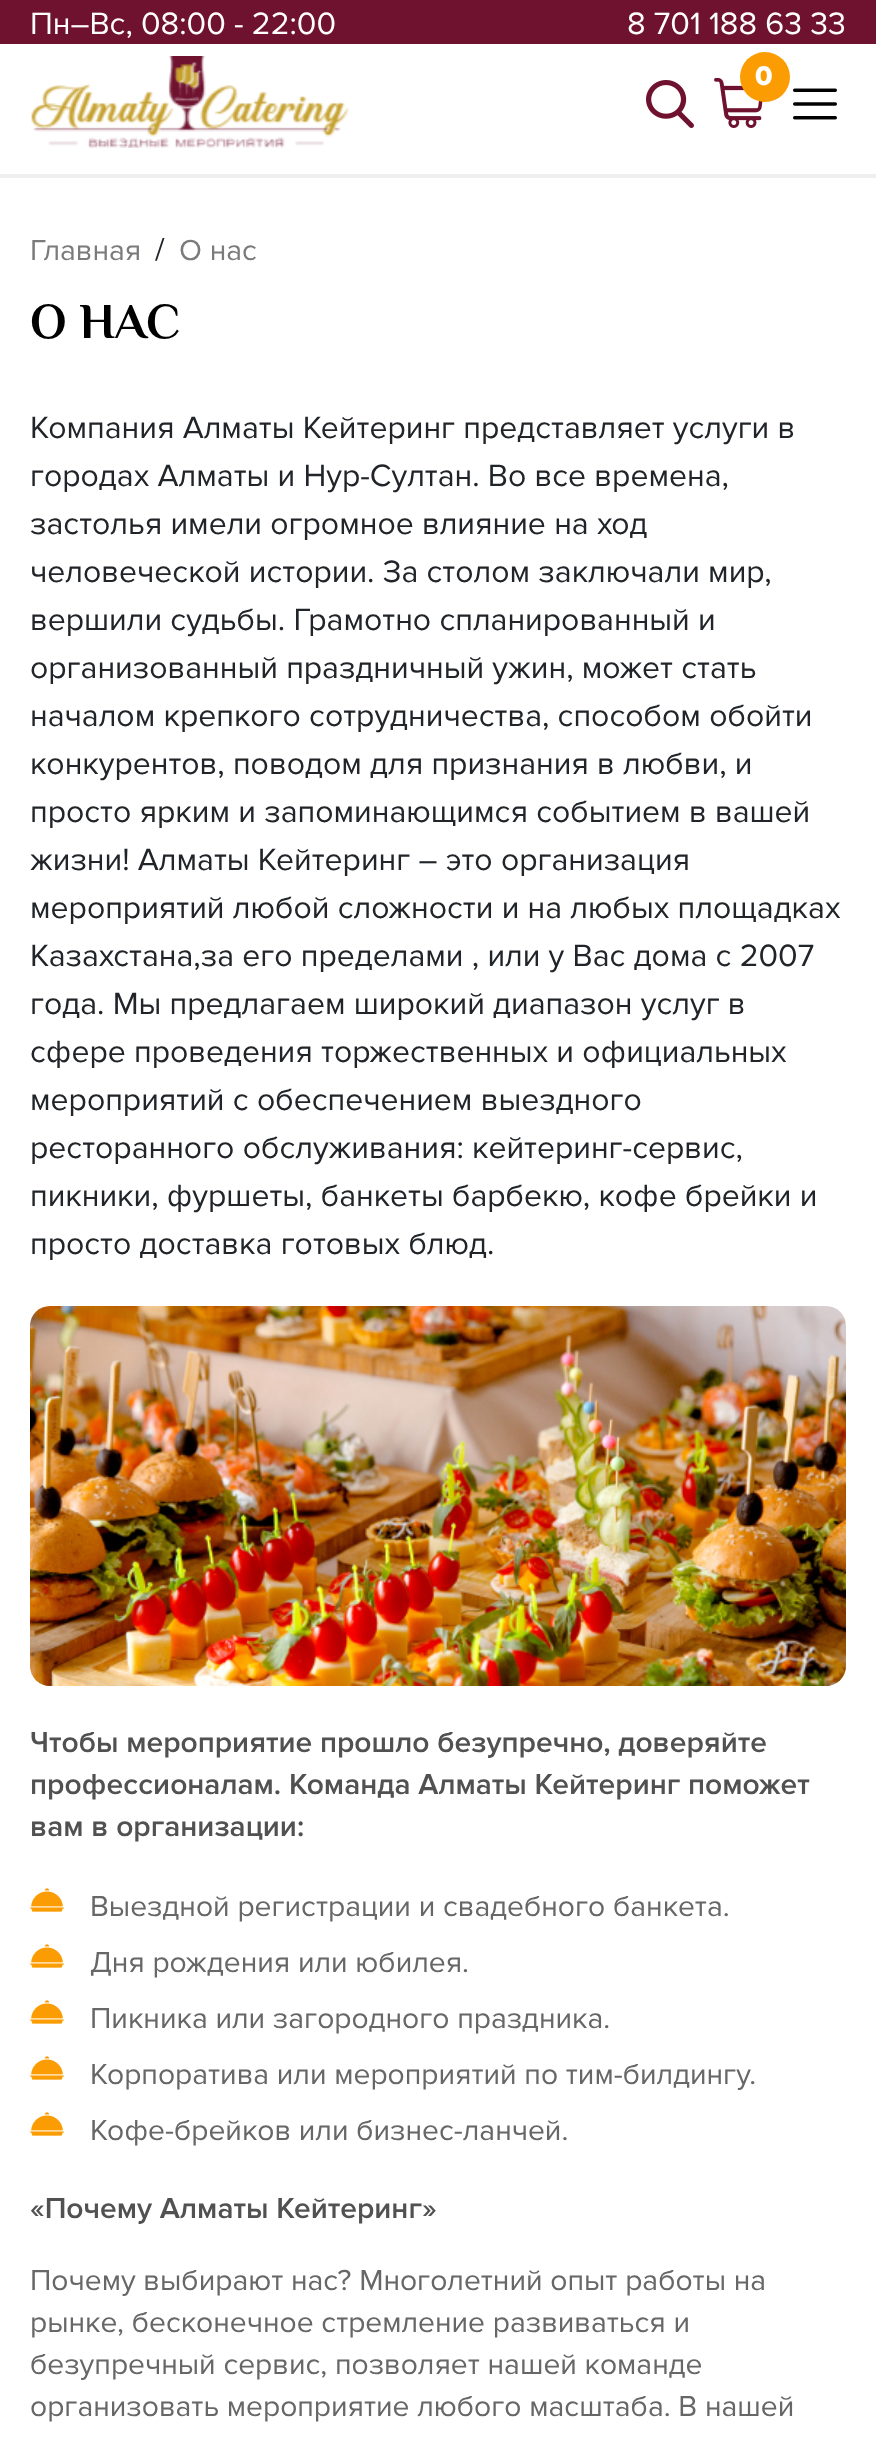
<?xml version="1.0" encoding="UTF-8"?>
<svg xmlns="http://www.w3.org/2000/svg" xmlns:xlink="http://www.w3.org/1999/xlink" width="876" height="2442">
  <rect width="100%" height="100%" fill="#ffffff" />
  <rect width="876" height="44" fill="#6f122f" />
  <rect y="174" width="876" height="4" fill="#efefef" />
  <image x="31" y="56" width="319" height="92" xlink:href="image1.png" />
  <image x="714" y="78" width="49" height="50" xlink:href="image2.png" />
  <circle cx="765" cy="77" r="25" fill="#fb9d02" />
  <image x="646" y="80" width="48" height="48" xlink:href="image3.png" />
  <image x="793" y="88" width="44" height="32" xlink:href="image4.png" />
  <image x="30" y="1306" width="816" height="380" xlink:href="image5.png" />
  <image x="30" y="1888" width="34" height="24" xlink:href="image6.png" />
  <image x="30" y="1944" width="34" height="24" xlink:href="image6.png" />
  <image x="30" y="2000" width="34" height="24" xlink:href="image6.png" />
  <image x="30" y="2056" width="34" height="24" xlink:href="image6.png" />
  <image x="30" y="2112" width="34" height="24" xlink:href="image6.png" />
  <text x="30" y="34" style="font-family: Proxima Nova; font-size: 32px; fill: #ffffff">Пн–Вс, 08:00 - 22:00</text>
  <text x="627" y="34" style="font-family: Proxima Nova; font-size: 32px; fill: #ffffff">8 701 188 63 33</text>
  <text x="755" y="85" style="font-family: Proxima Nova; font-size: 28px; font-weight: 800; fill: #ffffff">0</text>
  <text x="30" y="260" style="font-family: Proxima Nova; font-size: 30px; fill: #7b7b7b">Главная</text>
  <text x="155" y="260" style="font-family: Proxima Nova; font-size: 32px; fill: #212529">/</text>
  <text x="179" y="260" style="font-family: Proxima Nova; font-size: 30px; fill: #7b7b7b">О нас</text>
  <text x="30" y="338" style="font-family: Philosopher; font-size: 50px; font-weight: bold; fill: #000000">О НАС</text>
  <text x="30" y="438" style="font-family: Proxima Nova; font-size: 32px; fill: #212529">Компания Алматы Кейтеринг представляет услуги в</text>
  <text x="30" y="486" style="font-family: Proxima Nova; font-size: 32px; fill: #212529">городах Алматы и Нур-Султан. Во все времена,</text>
  <text x="30" y="534" style="font-family: Proxima Nova; font-size: 32px; fill: #212529">застолья имели огромное влияние на ход</text>
  <text x="30" y="582" style="font-family: Proxima Nova; font-size: 32px; fill: #212529">человеческой истории. За столом заключали мир,</text>
  <text x="30" y="630" style="font-family: Proxima Nova; font-size: 32px; fill: #212529">вершили судьбы. Грамотно спланированный и</text>
  <text x="30" y="678" style="font-family: Proxima Nova; font-size: 32px; fill: #212529">организованный праздничный ужин, может стать</text>
  <text x="30" y="726" style="font-family: Proxima Nova; font-size: 32px; fill: #212529">началом крепкого сотрудничества, способом обойти</text>
  <text x="30" y="774" style="font-family: Proxima Nova; font-size: 32px; fill: #212529">конкурентов, поводом для признания в любви, и</text>
  <text x="30" y="822" style="font-family: Proxima Nova; font-size: 32px; fill: #212529">просто ярким и запоминающимся событием в вашей</text>
  <text x="30" y="870" style="font-family: Proxima Nova; font-size: 32px; fill: #212529">жизни! Алматы Кейтеринг – это организация</text>
  <text x="30" y="918" style="font-family: Proxima Nova; font-size: 32px; fill: #212529">мероприятий любой сложности и на любых площадках</text>
  <text x="30" y="966" style="font-family: Proxima Nova; font-size: 32px; fill: #212529">Казахстана,за его пределами , или у Вас дома с 2007</text>
  <text x="30" y="1014" style="font-family: Proxima Nova; font-size: 32px; fill: #212529">года. Мы предлагаем широкий диапазон услуг в</text>
  <text x="30" y="1062" style="font-family: Proxima Nova; font-size: 32px; fill: #212529">сфере проведения торжественных и официальных</text>
  <text x="30" y="1110" style="font-family: Proxima Nova; font-size: 32px; fill: #212529">мероприятий с обеспечением выездного</text>
  <text x="30" y="1158" style="font-family: Proxima Nova; font-size: 32px; fill: #212529">ресторанного обслуживания: кейтеринг-сервис,</text>
  <text x="30" y="1206" style="font-family: Proxima Nova; font-size: 32px; fill: #212529">пикники, фуршеты, банкеты барбекю, кофе брейки и</text>
  <text x="30" y="1254" style="font-family: Proxima Nova; font-size: 32px; fill: #212529">просто доставка готовых блюд.</text>
  <text x="30" y="1752" style="font-family: Proxima Nova; font-size: 30px; font-weight: 600; fill: #515151">Чтобы мероприятие прошло безупречно, доверяйте</text>
  <text x="30" y="1794" style="font-family: Proxima Nova; font-size: 30px; font-weight: 600; fill: #515151">профессионалам. Команда Алматы Кейтеринг поможет</text>
  <text x="30" y="1836" style="font-family: Proxima Nova; font-size: 30px; font-weight: 600; fill: #515151">вам в организации:</text>
  <text x="90" y="1916" style="font-family: Proxima Nova; font-size: 30px; fill: #676767">Выездной регистрации и свадебного банкета.</text>
  <text x="90" y="1972" style="font-family: Proxima Nova; font-size: 30px; fill: #676767">Дня рождения или юбилея.</text>
  <text x="90" y="2028" style="font-family: Proxima Nova; font-size: 30px; fill: #676767">Пикника или загородного праздника.</text>
  <text x="90" y="2084" style="font-family: Proxima Nova; font-size: 30px; fill: #676767">Корпоратива или мероприятий по тим-билдингу.</text>
  <text x="90" y="2140" style="font-family: Proxima Nova; font-size: 30px; fill: #676767">Кофе-брейков или бизнес-ланчей.</text>
  <text x="30" y="2218" style="font-family: Proxima Nova; font-size: 30px; font-weight: 600; fill: #515151">«Почему Алматы Кейтеринг»</text>
  <text x="30" y="2290" style="font-family: Proxima Nova; font-size: 30px; fill: #676767">Почему выбирают нас? Многолетний опыт работы на</text>
  <text x="30" y="2332" style="font-family: Proxima Nova; font-size: 30px; fill: #676767">рынке, бесконечное стремление развиваться и</text>
  <text x="30" y="2374" style="font-family: Proxima Nova; font-size: 30px; fill: #676767">безупречный сервис, позволяет нашей команде</text>
  <text x="30" y="2416" style="font-family: Proxima Nova; font-size: 30px; fill: #676767">организовать мероприятие любого масштаба. В нашей</text>
</svg>
